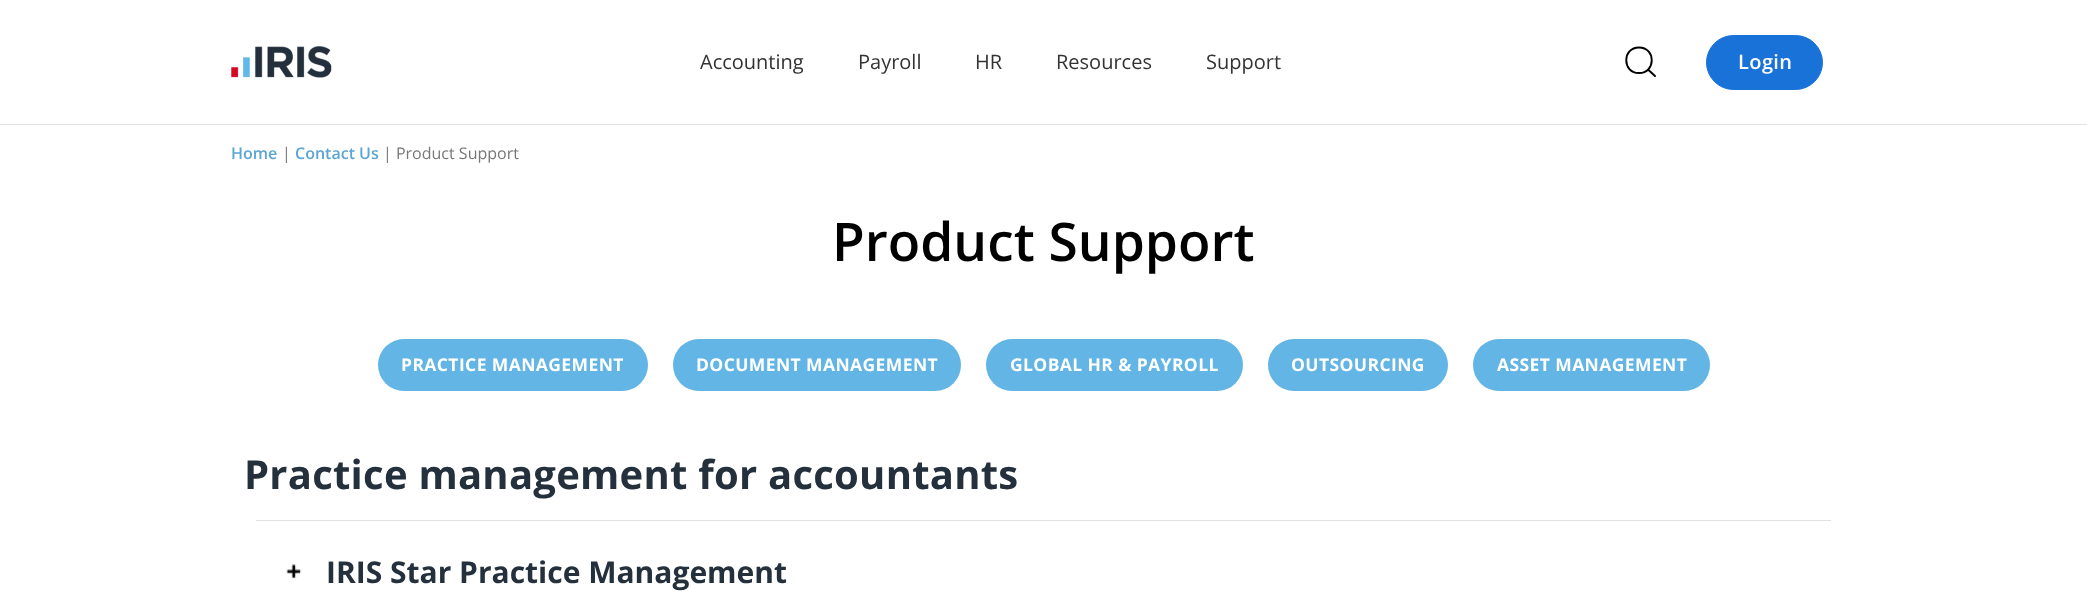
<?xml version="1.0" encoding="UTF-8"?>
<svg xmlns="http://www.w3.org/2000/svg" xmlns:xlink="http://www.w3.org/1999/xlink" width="2087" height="613">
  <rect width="100%" height="100%" fill="#ffffff" />
  <rect y="124" width="2087" height="1" fill="#e2e5e6" />
  <image x="231" y="46" width="101" height="32" xlink:href="image1.png" />
  <path d="M 1639 73 c 17 0 17 -25.5 0 -25.5 c -17 0 -17 25.5 0 25.5 z m 16 3 l -7 -6.5" fill="none" stroke="#000000" stroke-width="1.9" stroke-linecap="round" stroke-linejoin="round" />
  <rect x="1706.5" y="35.5" width="116" height="54" rx="27" fill="#1972d8" stroke="#1972d8" />
  <rect x="378" y="339" width="270" height="52" rx="26" fill="#62b5e5" />
  <rect x="673" y="339" width="288" height="52" rx="26" fill="#62b5e5" />
  <rect x="986" y="339" width="257" height="52" rx="26" fill="#62b5e5" />
  <rect x="1268" y="339" width="180" height="52" rx="26" fill="#62b5e5" />
  <rect x="1473" y="339" width="237" height="52" rx="26" fill="#62b5e5" />
  <rect x="256" y="520" width="1575" height="1" fill="#e2e2e2" />
  <image x="286" y="564" width="16" height="15" xlink:href="image2.png" />
  <text x="700" y="69" style="font-family: Open Sans; font-size: 20px; fill: #333333">Accounting</text>
  <text x="858" y="69" style="font-family: Open Sans; font-size: 20px; fill: #333333">Payroll</text>
  <text x="975" y="69" style="font-family: Open Sans; font-size: 20px; fill: #333333">HR</text>
  <text x="1056" y="69" style="font-family: Open Sans; font-size: 20px; fill: #333333">Resources</text>
  <text x="1206" y="69" style="font-family: Open Sans; font-size: 20px; fill: #333333">Support</text>
  <text x="1738" y="69" style="font-family: Open Sans; font-size: 20px; font-weight: 600; letter-spacing: 0.4px; fill: #ffffff">Login</text>
  <text x="231" y="159" style="font-family: Open Sans; font-size: 16px; font-weight: 600; fill: #5ba6d4">Home</text>
  <text x="282" y="159" style="font-family: Open Sans; font-size: 16px; fill: #777777">|</text>
  <text x="295" y="159" style="font-family: Open Sans; font-size: 16px; font-weight: 600; fill: #5ba6d4">Contact Us</text>
  <text x="383" y="159" style="font-family: Open Sans; font-size: 16px; fill: #777777">| Product Support</text>
  <text x="832" y="261" style="font-family: Open Sans; font-size: 53.25px; font-weight: 600; fill: #000000">Product Support</text>
  <text x="401" y="371" style="font-family: Open Sans; font-size: 17.5px; font-weight: bold; letter-spacing: 0.4px; fill: #ffffff">PRACTICE MANAGEMENT</text>
  <text x="696" y="371" style="font-family: Open Sans; font-size: 17.5px; font-weight: bold; letter-spacing: 0.4px; fill: #ffffff">DOCUMENT MANAGEMENT</text>
  <text x="1010" y="371" style="font-family: Open Sans; font-size: 17.5px; font-weight: bold; letter-spacing: 0.4px; fill: #ffffff">GLOBAL HR &amp; PAYROLL</text>
  <text x="1291" y="371" style="font-family: Open Sans; font-size: 17.5px; font-weight: bold; letter-spacing: 0.4px; fill: #ffffff">OUTSOURCING</text>
  <text x="1497" y="371" style="font-family: Open Sans; font-size: 17.5px; font-weight: bold; letter-spacing: 0.4px; fill: #ffffff">ASSET MANAGEMENT</text>
  <text x="244" y="489" style="font-family: Open Sans; font-size: 40px; font-weight: bold; letter-spacing: 0.25px; fill: #24303b">Practice management for accountants</text>
  <text x="326" y="583" style="font-family: Open Sans; font-size: 30px; font-weight: bold; fill: #24303b">IRIS Star Practice Management</text>
</svg>
